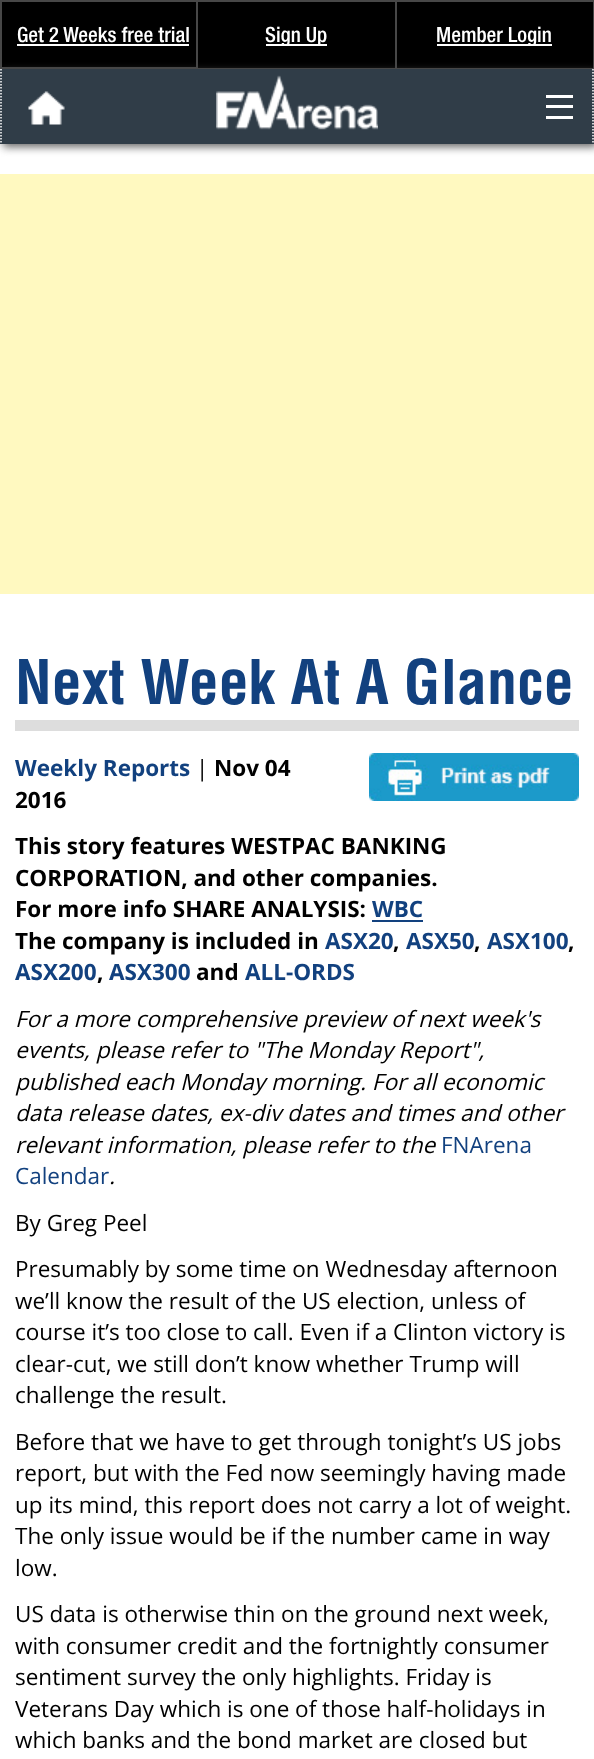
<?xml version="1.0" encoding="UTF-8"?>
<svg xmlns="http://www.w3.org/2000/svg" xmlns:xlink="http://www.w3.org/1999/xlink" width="594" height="1759">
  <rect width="100%" height="100%" fill="#ffffff" />
  <rect x="2" y="2" width="591" height="66" fill="#000000" />
  <rect x="3" y="72" width="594" height="75" fill="#666666" filter="blur(4px)" />
  <rect x="1" y="1" width="196" height="67" fill="none" stroke="#474747" stroke-width="2" />
  <rect x="17" y="44" width="172" height="2" fill="#ffffff" />
  <rect x="198" width="198" height="2" fill="#474747" />
  <rect x="395" width="2" height="69" fill="#474747" />
  <rect x="198" y="68" width="198" height="1" fill="#474747" />
  <rect x="266" y="44" width="61" height="2" fill="#ffffff" />
  <rect x="396" width="198" height="2" fill="#474747" />
  <rect x="593" width="1" height="69" fill="#474747" />
  <rect x="396" y="68" width="198" height="1" fill="#474747" />
  <rect x="437" y="44" width="115" height="2" fill="#ffffff" />
  <rect y="69" width="594" height="75" fill="#303d48" />
  <path d="M 593 69 v 75" fill="none" stroke="#ffffff" stroke-width="1.5" stroke-dasharray="1.5 1.5" />
  <path d="M 1 69 v 75" fill="none" stroke="#ffffff" stroke-width="1.5" stroke-dasharray="1.5 1.5" />
  <image x="28" y="91" width="37" height="34" xlink:href="image1.png" />
  <image x="216" y="75" width="162" height="55" xlink:href="image2.png" />
  <rect x="546" y="116" width="27" height="3" fill="#ffffff" />
  <rect x="546" y="105" width="27" height="3" fill="#ffffff" />
  <rect x="546" y="95" width="27" height="3" fill="#ffffff" />
  <rect y="174" width="594" height="420" fill="#fff9c0" />
  <rect x="15" y="720" width="564" height="11" fill="#dddddd" />
  <image x="369" y="753" width="210" height="48" xlink:href="image3.png" />
  <rect x="372" y="920" width="51" height="2" fill="#12417f" />
  <text x="17" y="42" style="font-family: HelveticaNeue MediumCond; font-size: 21px; font-weight: 500; fill: #ffffff">Get 2 Weeks free trial</text>
  <text x="265" y="42" style="font-family: HelveticaNeue MediumCond; font-size: 21px; font-weight: 500; fill: #ffffff">Sign Up</text>
  <text x="436" y="42" style="font-family: HelveticaNeue MediumCond; font-size: 21px; font-weight: 500; fill: #ffffff">Member Login</text>
  <text x="15" y="704" style="font-family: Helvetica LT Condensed; font-size: 60px; font-weight: bold; fill: #12417f">Next Week At A Glance</text>
  <text x="15" y="776" style="font-family: Open Sans; font-size: 22.5px; font-weight: bold; fill: #12417f">Weekly Reports</text>
  <text x="196" y="776" style="font-family: Open Sans; font-size: 22.5px; fill: #000000">|</text>
  <text x="214" y="776" style="font-family: Open Sans; font-size: 22.5px; font-weight: bold; fill: #000000">Nov 04</text>
  <text x="15" y="808" style="font-family: Open Sans; font-size: 22.5px; font-weight: bold; fill: #000000">2016</text>
  <text x="15" y="854" style="font-family: Open Sans; font-size: 22.5px; font-weight: bold; fill: #000000">This story features WESTPAC BANKING</text>
  <text x="15" y="886" style="font-family: Open Sans; font-size: 22.5px; font-weight: bold; fill: #000000">CORPORATION, and other companies.</text>
  <text x="15" y="917" style="font-family: Open Sans; font-size: 22.5px; font-weight: bold; fill: #000000">For more info SHARE ANALYSIS:</text>
  <text x="372" y="917" style="font-family: Open Sans; font-size: 22.5px; font-weight: bold; fill: #12417f">WBC</text>
  <text x="15" y="949" style="font-family: Open Sans; font-size: 22.5px; font-weight: bold; fill: #000000">The company is included in</text>
  <text x="325" y="949" style="font-family: Open Sans; font-size: 22.5px; font-weight: bold; fill: #12417f">ASX20</text>
  <text x="393" y="949" style="font-family: Open Sans; font-size: 22.5px; font-weight: bold; fill: #000000">,</text>
  <text x="406" y="949" style="font-family: Open Sans; font-size: 22.5px; font-weight: bold; fill: #12417f">ASX50</text>
  <text x="474" y="949" style="font-family: Open Sans; font-size: 22.5px; font-weight: bold; fill: #000000">,</text>
  <text x="487" y="949" style="font-family: Open Sans; font-size: 22.5px; font-weight: bold; fill: #12417f">ASX100</text>
  <text x="568" y="949" style="font-family: Open Sans; font-size: 22.5px; font-weight: bold; fill: #000000">,</text>
  <text x="15" y="980" style="font-family: Open Sans; font-size: 22.5px; font-weight: bold; fill: #12417f">ASX200</text>
  <text x="97" y="980" style="font-family: Open Sans; font-size: 22.5px; font-weight: bold; fill: #000000">,</text>
  <text x="109" y="980" style="font-family: Open Sans; font-size: 22.5px; font-weight: bold; fill: #12417f">ASX300</text>
  <text x="196" y="980" style="font-family: Open Sans; font-size: 22.5px; font-weight: bold; fill: #000000">and</text>
  <text x="245" y="980" style="font-family: Open Sans; font-size: 22.5px; font-weight: bold; fill: #12417f">ALL-ORDS</text>
  <text x="15" y="1027" style="font-family: Open Sans; font-size: 22.5px; font-style: italic; fill: #000000">For a more comprehensive preview of next week's</text>
  <text x="15" y="1058" style="font-family: Open Sans; font-size: 22.5px; font-style: italic; fill: #000000">events, please refer to "The Monday Report",</text>
  <text x="15" y="1090" style="font-family: Open Sans; font-size: 22.5px; font-style: italic; fill: #000000">published each Monday morning. For all economic</text>
  <text x="15" y="1121" style="font-family: Open Sans; font-size: 22.5px; font-style: italic; fill: #000000">data release dates, ex-div dates and times and other</text>
  <text x="15" y="1153" style="font-family: Open Sans; font-size: 22.5px; font-style: italic; fill: #000000">relevant information, please refer to the</text>
  <text x="441" y="1153" style="font-family: Open Sans; font-size: 22.5px; fill: #12417f">FNArena</text>
  <text x="15" y="1184" style="font-family: Open Sans; font-size: 22.5px; fill: #12417f">Calendar</text>
  <text x="109" y="1184" style="font-family: Open Sans; font-size: 22.5px; font-style: italic; fill: #000000">.</text>
  <text x="15" y="1231" style="font-family: Open Sans; font-size: 22.5px; fill: #000000">By Greg Peel</text>
  <text x="15" y="1277" style="font-family: Open Sans; font-size: 22.5px; fill: #000000">Presumably by some time on Wednesday afternoon</text>
  <text x="15" y="1309" style="font-family: Open Sans; font-size: 22.5px; fill: #000000">we’ll know the result of the US election, unless of</text>
  <text x="15" y="1340" style="font-family: Open Sans; font-size: 22.5px; fill: #000000">course it’s too close to call. Even if a Clinton victory is</text>
  <text x="15" y="1372" style="font-family: Open Sans; font-size: 22.5px; fill: #000000">clear-cut, we still don’t know whether Trump will</text>
  <text x="15" y="1403" style="font-family: Open Sans; font-size: 22.5px; fill: #000000">challenge the result.</text>
  <text x="15" y="1450" style="font-family: Open Sans; font-size: 22.5px; fill: #000000">Before that we have to get through tonight’s US jobs</text>
  <text x="15" y="1481" style="font-family: Open Sans; font-size: 22.5px; fill: #000000">report, but with the Fed now seemingly having made</text>
  <text x="15" y="1513" style="font-family: Open Sans; font-size: 22.5px; fill: #000000">up its mind, this report does not carry a lot of weight.</text>
  <text x="15" y="1544" style="font-family: Open Sans; font-size: 22.5px; fill: #000000">The only issue would be if the number came in way</text>
  <text x="15" y="1576" style="font-family: Open Sans; font-size: 22.5px; fill: #000000">low.</text>
  <text x="15" y="1622" style="font-family: Open Sans; font-size: 22.5px; fill: #000000">US data is otherwise thin on the ground next week,</text>
  <text x="15" y="1654" style="font-family: Open Sans; font-size: 22.5px; fill: #000000">with consumer credit and the fortnightly consumer</text>
  <text x="15" y="1685" style="font-family: Open Sans; font-size: 22.5px; fill: #000000">sentiment survey the only highlights. Friday is</text>
  <text x="15" y="1717" style="font-family: Open Sans; font-size: 22.5px; fill: #000000">Veterans Day which is one of those half-holidays in</text>
  <text x="15" y="1748" style="font-family: Open Sans; font-size: 22.5px; fill: #000000">which banks and the bond market are closed but</text>
</svg>
